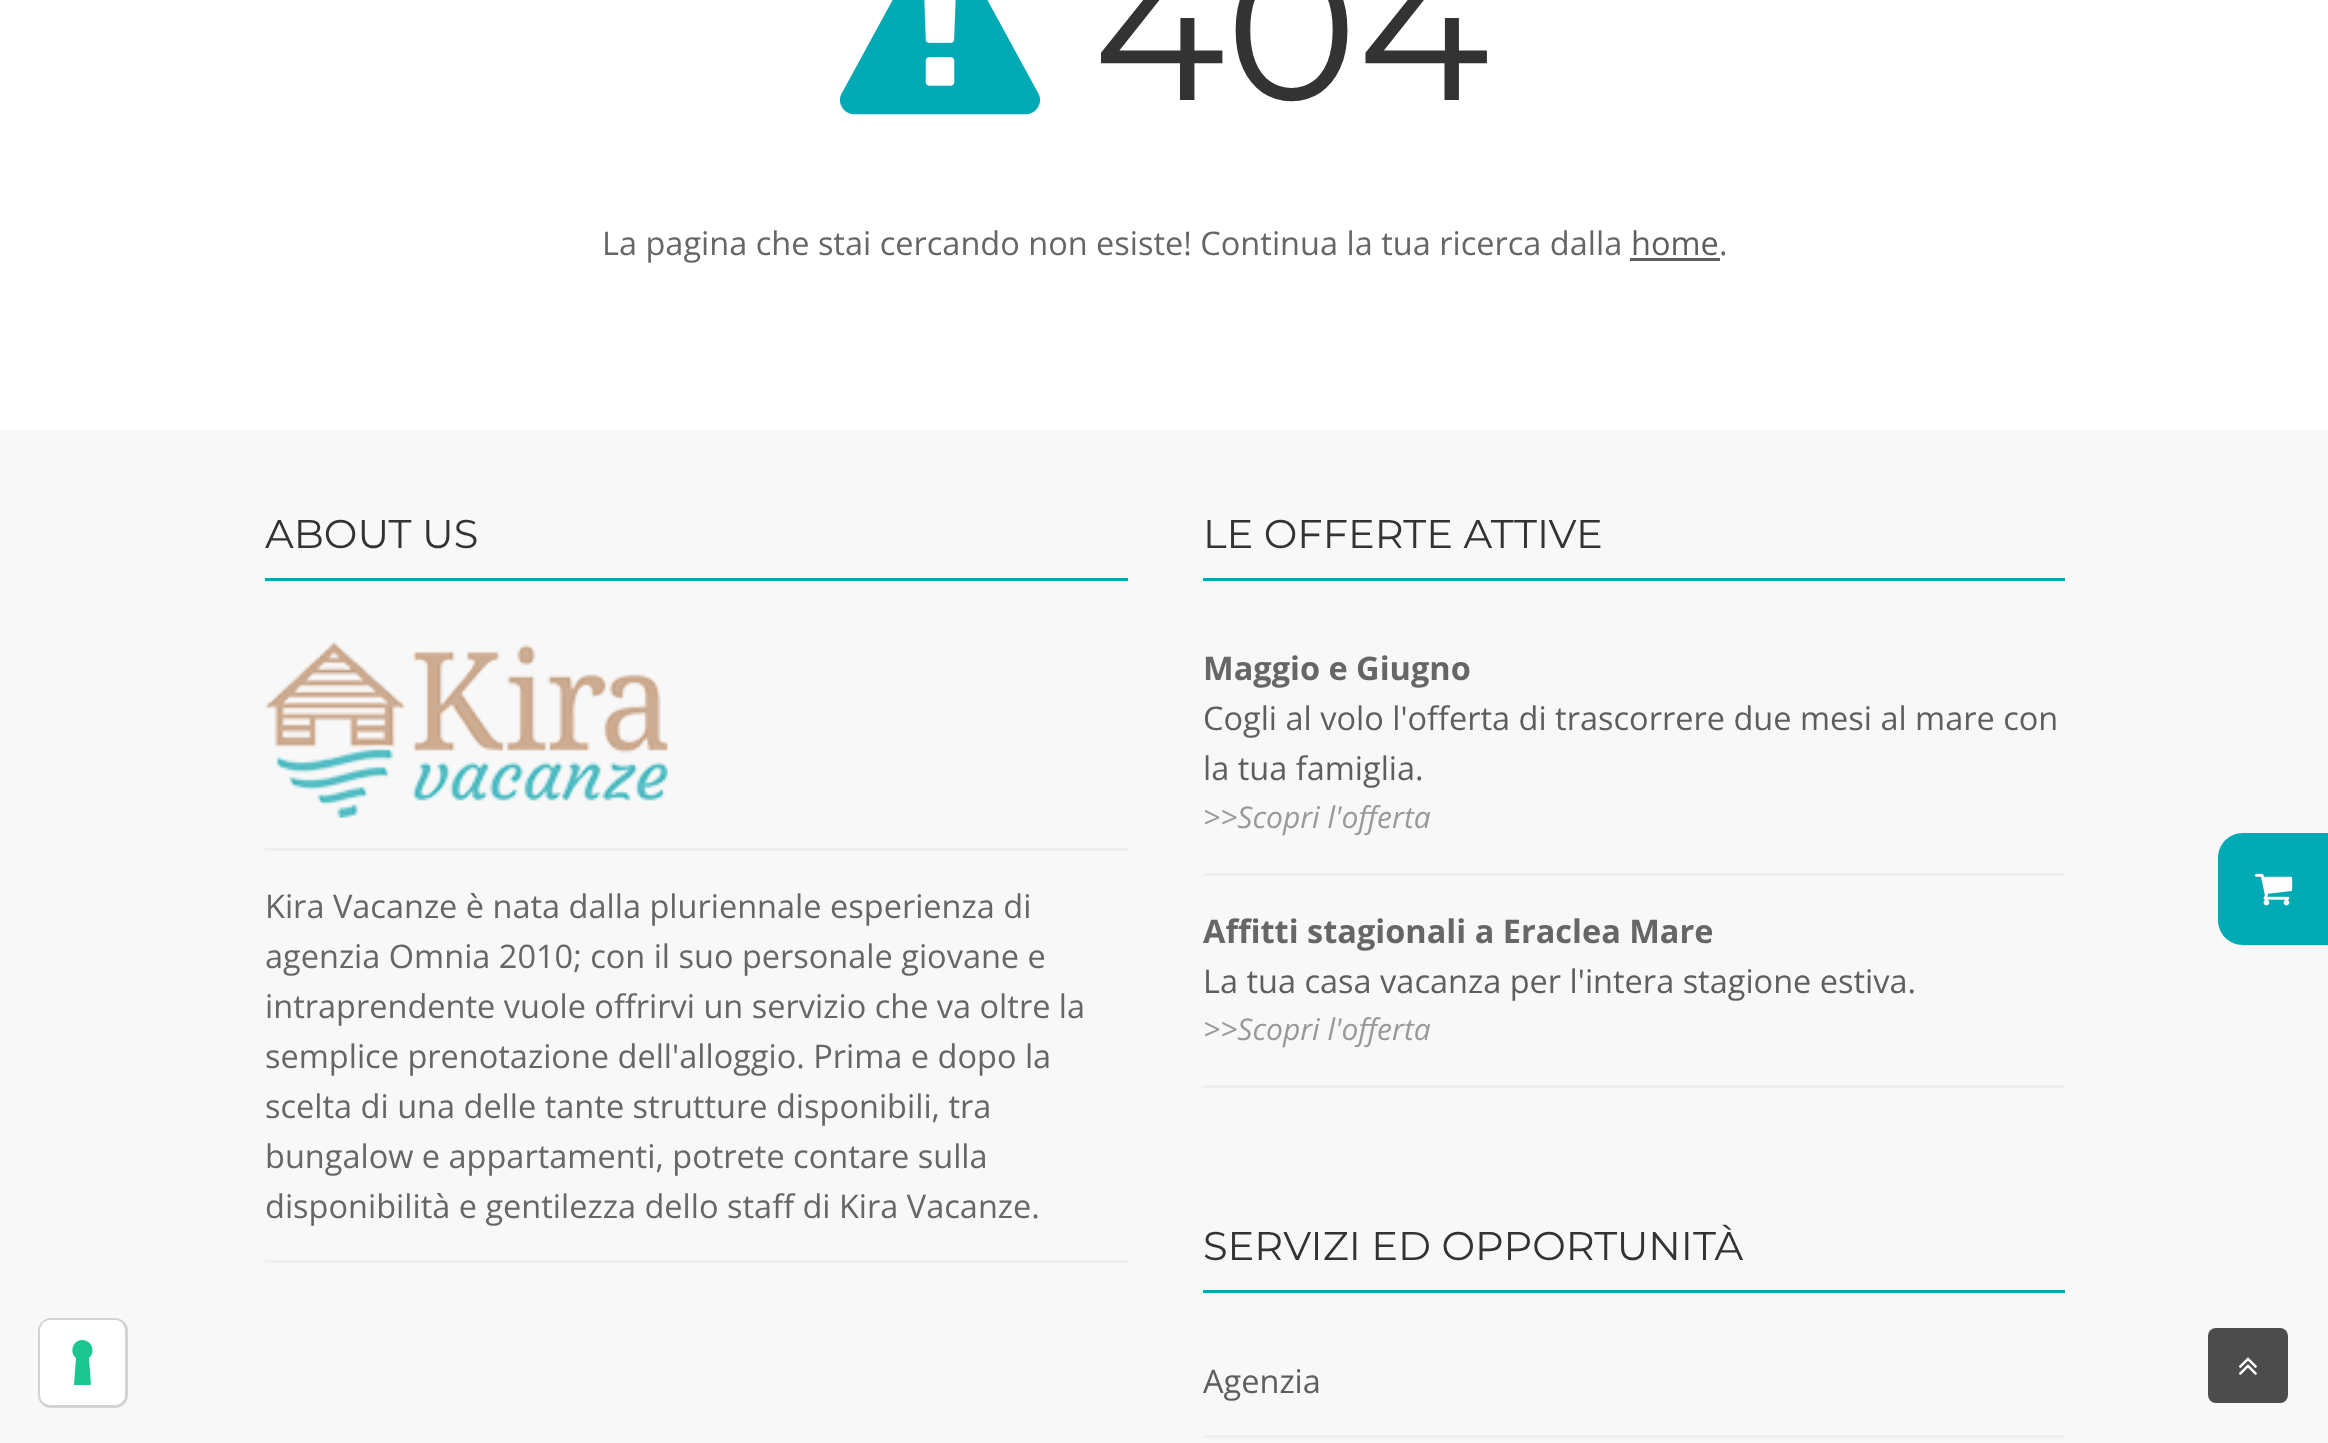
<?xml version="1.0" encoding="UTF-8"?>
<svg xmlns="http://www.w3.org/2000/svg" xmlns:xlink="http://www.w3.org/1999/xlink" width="2328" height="1443">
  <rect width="100%" height="100%" fill="#ffffff" />
  <rect y="430" width="2328" height="1013" fill="#f8f8f8" />
  <rect x="39.5" y="1319.5" width="87" height="87" rx="11.5" fill="none" stroke="#d3d3d3" stroke-width="3" />
  <rect x="40" y="1320" width="85" height="85" rx="10" fill="#ffffff" />
  <path d="M 82 1340 c 10 0 14 12 7 18 l 2 27 h -17 l 2 -27 c -7 -6 -3 -18 6 -18 z" fill="#1cc691" fill-rule="evenodd" />
  <image x="839" y="0" width="202" height="115" xlink:href="image1.png" />
  <rect x="1630" y="258" width="90" height="3" fill="#5e5e5e" />
  <rect x="265" y="578" width="863" height="3" fill="#00aab5" />
  <rect x="265" y="848" width="863" height="3" fill="#efefef" />
  <image x="265" y="642" width="403" height="176" xlink:href="image2.png" />
  <rect x="265" y="1260" width="863" height="3" fill="#efefef" />
  <rect x="1203" y="578" width="862" height="3" fill="#00aab5" />
  <rect x="1203" y="873" width="862" height="3" fill="#efefef" />
  <rect x="1203" y="1085" width="862" height="3" fill="#efefef" />
  <rect x="1203" y="1290" width="862" height="3" fill="#00aab5" />
  <rect x="1203" y="1435" width="862" height="3" fill="#efefef" />
  <path d="M 2243 833 h 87 v 112 h -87 c -14 0 -25 -11 -25 -25 v -62 c 0 -14 11 -25 25 -25 z" fill="#00aab5" />
  <image x="2255" y="873" width="38" height="33" xlink:href="image3.png" />
  <rect x="2208" y="1328" width="80" height="75" rx="8" fill="#4c4c4c" />
  <image x="2238" y="1357" width="19" height="18" xlink:href="image4.png" />
  <text x="1093" y="100" style="font-family: Montserrat; font-size: 200px; fill: #333333">404</text>
  <text x="602" y="255" style="font-family: Open Sans; font-size: 32.5px; fill: #666666">La pagina che stai cercando non esiste! Continua la tua ricerca dalla</text>
  <text x="1631" y="255" style="font-family: Open Sans; font-size: 32.5px; fill: #5e5e5e">home</text>
  <text x="1719" y="255" style="font-family: Open Sans; font-size: 32.5px; fill: #666666">.</text>
  <text x="265" y="548" style="font-family: Montserrat; font-size: 40px; fill: #333333">ABOUT US</text>
  <text x="265" y="918" style="font-family: Open Sans; font-size: 32.5px; fill: #666666">Kira Vacanze è nata dalla pluriennale esperienza di</text>
  <text x="265" y="968" style="font-family: Open Sans; font-size: 32.5px; fill: #666666">agenzia Omnia 2010; con il suo personale giovane e</text>
  <text x="265" y="1018" style="font-family: Open Sans; font-size: 32.5px; fill: #666666">intraprendente vuole offrirvi un servizio che va oltre la</text>
  <text x="265" y="1068" style="font-family: Open Sans; font-size: 32.5px; fill: #666666">semplice prenotazione dell'alloggio. Prima e dopo la</text>
  <text x="265" y="1118" style="font-family: Open Sans; font-size: 32.5px; fill: #666666">scelta di una delle tante strutture disponibili, tra</text>
  <text x="265" y="1168" style="font-family: Open Sans; font-size: 32.5px; fill: #666666">bungalow e appartamenti, potrete contare sulla</text>
  <text x="265" y="1218" style="font-family: Open Sans; font-size: 32.5px; fill: #666666">disponibilità e gentilezza dello staff di Kira Vacanze.</text>
  <text x="1203" y="548" style="font-family: Montserrat; font-size: 40px; fill: #333333">LE OFFERTE ATTIVE</text>
  <text x="1203" y="680" style="font-family: Open Sans; font-size: 32.5px; font-weight: bold; fill: #666666">Maggio e Giugno</text>
  <text x="1203" y="730" style="font-family: Open Sans; font-size: 32.5px; fill: #5e5e5e">Cogli al volo l'offerta di trascorrere due mesi al mare con</text>
  <text x="1203" y="780" style="font-family: Open Sans; font-size: 32.5px; fill: #5e5e5e">la tua famiglia.</text>
  <text x="1203" y="828" style="font-family: Open Sans; font-size: 30px; font-style: italic; fill: #999999">&gt;&gt;Scopri l'offerta</text>
  <text x="1203" y="943" style="font-family: Open Sans; font-size: 32.5px; font-weight: bold; fill: #666666">Affitti stagionali a Eraclea Mare</text>
  <text x="1203" y="993" style="font-family: Open Sans; font-size: 32.5px; fill: #5e5e5e">La tua casa vacanza per l'intera stagione estiva.</text>
  <text x="1203" y="1040" style="font-family: Open Sans; font-size: 30px; font-style: italic; fill: #999999">&gt;&gt;Scopri l'offerta</text>
  <text x="1203" y="1260" style="font-family: Montserrat; font-size: 40px; fill: #333333">SERVIZI ED OPPORTUNITÀ</text>
  <text x="1203" y="1393" style="font-family: Open Sans; font-size: 32.5px; fill: #5e5e5e">Agenzia</text>
</svg>
